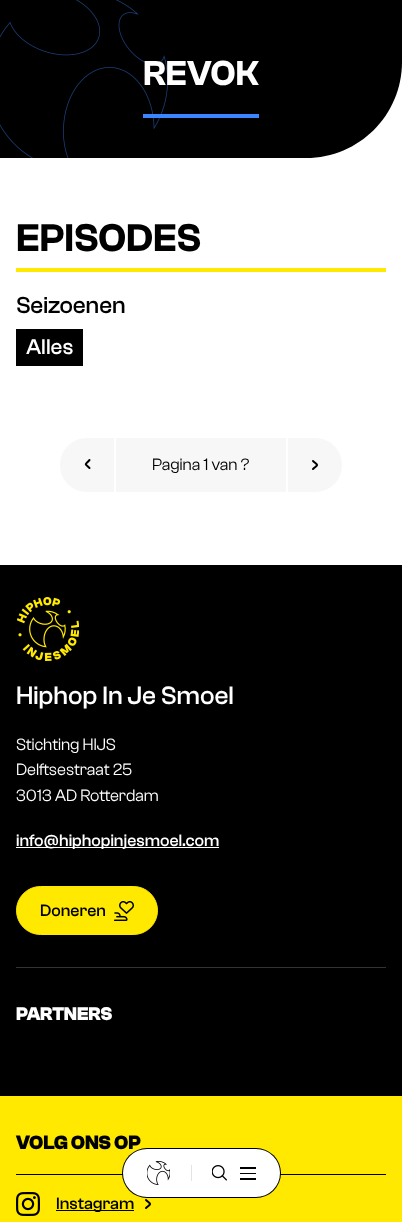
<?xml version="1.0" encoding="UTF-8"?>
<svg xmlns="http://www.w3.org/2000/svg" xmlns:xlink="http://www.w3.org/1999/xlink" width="402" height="1222">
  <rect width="100%" height="100%" fill="#ffffff" />
  <path d="M 0 0 h 402 v 62 c 0 53 -43 96 -96 96 h -306 z" fill="#000000" />
  <image x="0" y="0" width="168" height="158" xlink:href="image1.png" />
  <rect x="143" y="114" width="116" height="4" fill="#3a86ff" />
  <rect x="16" y="268" width="370" height="4" fill="#ffe900" />
  <rect x="16" y="329" width="67" height="37" fill="#000000" />
  <path d="M 114 492 h -27 c -15 0 -27 -12 -27 -27 c 0 -15 12 -27 27 -27 h 27 z" fill="#f7f7f7" />
  <path d="M 89.5 468 c -5 -5 -5 -2.5 0 -8" fill="none" stroke="#000000" stroke-width="2" stroke-linecap="round" stroke-linejoin="round" />
  <rect x="116" y="438" width="170" height="54" fill="#f7f7f7" />
  <path d="M 288 438 h 27 c 15 0 27 12 27 27 c 0 15 -12 27 -27 27 h -27 z" fill="#f7f7f7" />
  <path d="M 313 461 c 5.5 5 5.5 3 0 8" fill="none" stroke="#000000" stroke-width="2" stroke-linecap="round" stroke-linejoin="round" />
  <rect y="565" width="402" height="531" fill="#000000" />
  <image x="17" y="597" width="62" height="64" xlink:href="image2.png" />
  <rect x="16" y="847" width="203" height="1" fill="#ffffff" />
  <rect x="16.5" y="886.5" width="141" height="48" rx="24" fill="#ffe900" stroke="#ffe900" />
  <image x="114" y="901" width="20" height="20" xlink:href="image3.png" />
  <rect x="16" y="967" width="370" height="1" fill="#333333" />
  <rect y="1096" width="402" height="126" fill="#ffe900" />
  <rect x="16" y="1174" width="370" height="1" fill="#000000" />
  <image x="16" y="1192" width="24" height="24" xlink:href="image4.png" />
  <rect x="56" y="1210" width="78" height="1" fill="#000000" />
  <path d="M 146 1200 c 5.5 5 5.5 3 0 8" fill="none" stroke="#000000" stroke-width="2" stroke-linecap="round" stroke-linejoin="round" />
  <rect x="122" y="1148" width="159" height="50" rx="25" fill="#000000" />
  <text x="143" y="85" style="font-family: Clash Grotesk; font-size: 36px; font-weight: 600; fill: #ffffff">REVOK</text>
  <text x="16" y="251" style="font-family: Clash Grotesk; font-size: 40px; font-weight: 600; fill: #000000">EPISODES</text>
  <text x="16" y="313" style="font-family: Clash Grotesk; font-size: 24px; font-weight: 500; fill: #000000">Seizoenen</text>
  <text x="26" y="354" style="font-family: Clash Grotesk; font-size: 22px; font-weight: 500; fill: #ffffff">Alles</text>
  <text x="152" y="470" style="font-family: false; font-size: 17px; fill: #000000">Pagina 1 van ?</text>
  <text x="16" y="704" style="font-family: Clash Grotesk; font-size: 26px; font-weight: 500; fill: #ffffff">Hiphop In Je Smoel</text>
  <text x="16" y="750" style="font-family: false; font-size: 17px; fill: #ffffff">Stichting HIJS</text>
  <text x="16" y="775" style="font-family: false; font-size: 17px; fill: #ffffff">Delftsestraat 25</text>
  <text x="16" y="801" style="font-family: false; font-size: 17px; fill: #ffffff">3013 AD Rotterdam</text>
  <text x="16" y="846" style="font-family: Clash Grotesk; font-size: 17px; font-weight: 500; fill: #ffffff">info@hiphopinjesmoel.com</text>
  <text x="40" y="916" style="font-family: Clash Grotesk; font-size: 17px; font-weight: 500; fill: #000000">Doneren</text>
  <text x="16" y="1020" style="font-family: false; font-size: 19px; font-weight: bold; fill: #ffffff">PARTNERS</text>
  <text x="16" y="1149" style="font-family: false; font-size: 20px; font-weight: bold; fill: #000000">VOLG ONS OP</text>
  <text x="56" y="1209" style="font-family: Clash Grotesk; font-size: 17px; font-weight: 500; fill: #000000">Instagram</text>
  <rect x="123" y="1149" width="157" height="48" rx="24" fill="#ffffff" />
  <image x="147" y="1161" width="23" height="24" xlink:href="image5.png" />
  <rect x="191" y="1165" width="1" height="16" fill="#e4e4e4" />
  <image x="212" y="1165" width="15" height="16" xlink:href="image6.png" />
  <rect x="240" y="1167" width="16" height="2" fill="#000000" />
  <rect x="240" y="1173" width="16" height="1" fill="#000000" />
  <rect x="240" y="1178" width="16" height="2" fill="#000000" />
</svg>
